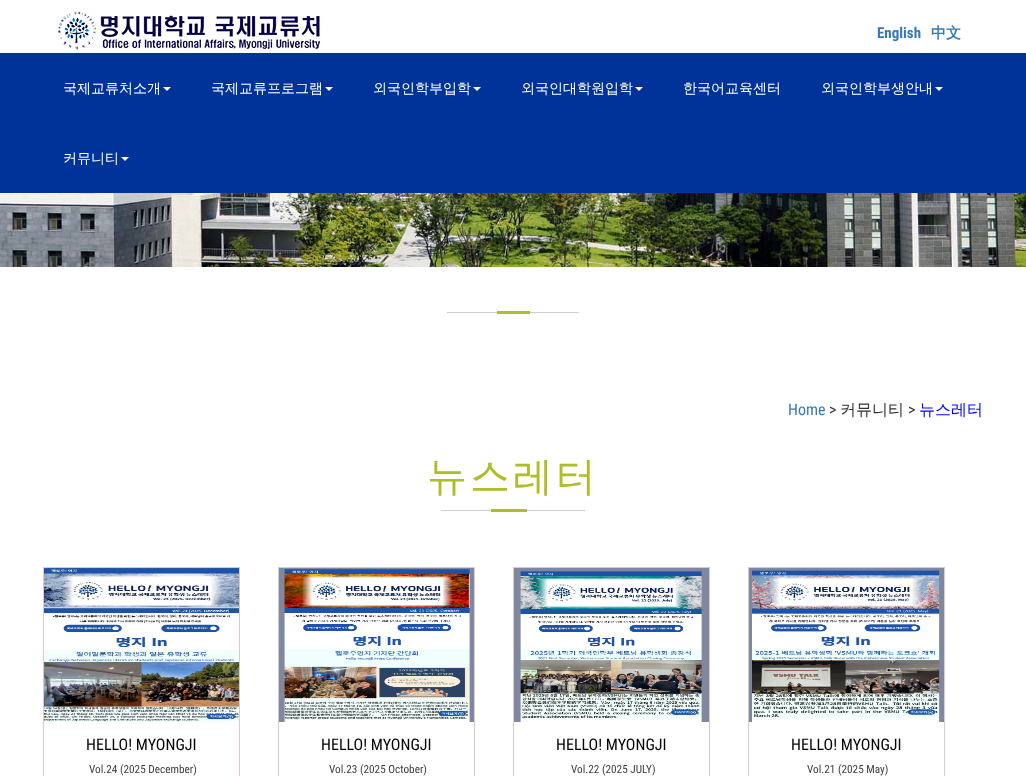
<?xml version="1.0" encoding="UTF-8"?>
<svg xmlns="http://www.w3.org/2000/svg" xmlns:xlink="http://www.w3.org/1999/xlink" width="1026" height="776">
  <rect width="100%" height="100%" fill="#ffffff" />
  <image x="58" y="8" width="264" height="45" xlink:href="image1.png" />
  <rect y="53" width="1026" height="140" fill="#003399" />
  <path d="M 163 87 h 8 l -4 4 z" fill="#ffffff" />
  <path d="M 325 87 h 8 l -4 4 z" fill="#ffffff" />
  <path d="M 473 87 h 8 l -4 4 z" fill="#ffffff" />
  <path d="M 635 87 h 8 l -4 4 z" fill="#ffffff" />
  <path d="M 935 87 h 8 l -4 4 z" fill="#ffffff" />
  <path d="M 121 157 h 8 l -4 4 z" fill="#ffffff" />
  <image x="0" y="193" width="1026" height="74" xlink:href="image2.png" />
  <rect x="447" y="312" width="132" height="1" fill="#cecece" />
  <rect x="497" y="311" width="33" height="3" fill="#aebe27" />
  <rect x="441" y="510" width="144" height="1" fill="#cecece" />
  <rect x="491" y="509" width="36" height="3" fill="#aebe27" />
  <rect x="43.5" y="567.5" width="196" height="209" fill="none" stroke="#d6cbcb" />
  <image x="44" y="568" width="195" height="154" xlink:href="image3.png" />
  <rect x="278.5" y="567.5" width="196" height="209" fill="none" stroke="#d6cbcb" />
  <image x="279" y="568" width="195" height="154" xlink:href="image4.png" />
  <rect x="513.5" y="567.5" width="196" height="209" fill="none" stroke="#d6cbcb" />
  <image x="514" y="568" width="195" height="154" xlink:href="image5.png" />
  <rect x="748.5" y="567.5" width="196" height="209" fill="none" stroke="#d6cbcb" />
  <image x="749" y="568" width="195" height="154" xlink:href="image6.png" />
  <text x="877" y="38" style="font-family: Roboto Condensed; font-size: 15px; font-weight: bold; fill: #337ab7">English</text>
  <text x="931" y="38" style="font-family: WenQuanYi Zen Hei; font-size: 15px; font-weight: bold; fill: #337ab7">中文</text>
  <text x="63" y="93" style="font-family: WenQuanYi Zen Hei; font-size: 14px; font-weight: 500; fill: #ffffff">국제교류처소개</text>
  <text x="211" y="93" style="font-family: WenQuanYi Zen Hei; font-size: 14px; font-weight: 500; fill: #ffffff">국제교류프로그램</text>
  <text x="373" y="93" style="font-family: WenQuanYi Zen Hei; font-size: 14px; font-weight: 500; fill: #ffffff">외국인학부입학</text>
  <text x="521" y="93" style="font-family: WenQuanYi Zen Hei; font-size: 14px; font-weight: 500; fill: #ffffff">외국인대학원입학</text>
  <text x="683" y="93" style="font-family: WenQuanYi Zen Hei; font-size: 14px; font-weight: 500; fill: #ffffff">한국어교육센터</text>
  <text x="821" y="93" style="font-family: WenQuanYi Zen Hei; font-size: 14px; font-weight: 500; fill: #ffffff">외국인학부생안내</text>
  <text x="63" y="163" style="font-family: WenQuanYi Zen Hei; font-size: 14px; font-weight: 500; fill: #ffffff">커뮤니티</text>
  <text x="788" y="415" style="font-family: Roboto Condensed; font-size: 16px; fill: #337ab7">Home</text>
  <text x="829" y="415" style="font-family: Roboto Condensed; font-size: 16px; fill: #333333">&gt;</text>
  <text x="840" y="415" style="font-family: WenQuanYi Zen Hei; font-size: 16px; font-weight: 500; fill: #333333">커뮤니티</text>
  <text x="908" y="415" style="font-family: Roboto Condensed; font-size: 16px; fill: #333333">&gt;</text>
  <text x="919" y="415" style="font-family: WenQuanYi Zen Hei; font-size: 16px; font-weight: 500; fill: #0000ff">뉴스레터</text>
  <text x="427" y="490" style="font-family: WenQuanYi Zen Hei; font-size: 40px; font-weight: 500; letter-spacing: 3px; fill: #aebe27">뉴스레터</text>
  <text x="86" y="750" style="font-family: Roboto Condensed; font-size: 16px; fill: #000000">HELLO! MYONGJI</text>
  <text x="89" y="773" style="font-family: Roboto Condensed; font-size: 11.25px; fill: #3f3d3d">Vol.24 (2025 December)</text>
  <text x="321" y="750" style="font-family: Roboto Condensed; font-size: 16px; fill: #000000">HELLO! MYONGJI</text>
  <text x="329" y="773" style="font-family: Roboto Condensed; font-size: 11.25px; fill: #3f3d3d">Vol.23 (2025 October)</text>
  <text x="556" y="750" style="font-family: Roboto Condensed; font-size: 16px; fill: #000000">HELLO! MYONGJI</text>
  <text x="571" y="773" style="font-family: Roboto Condensed; font-size: 11.25px; fill: #3f3d3d">Vol.22 (2025 JULY)</text>
  <text x="791" y="750" style="font-family: Roboto Condensed; font-size: 16px; fill: #000000">HELLO! MYONGJI</text>
  <text x="807" y="773" style="font-family: Roboto Condensed; font-size: 11.25px; fill: #3f3d3d">Vol.21 (2025 May)</text>
</svg>
